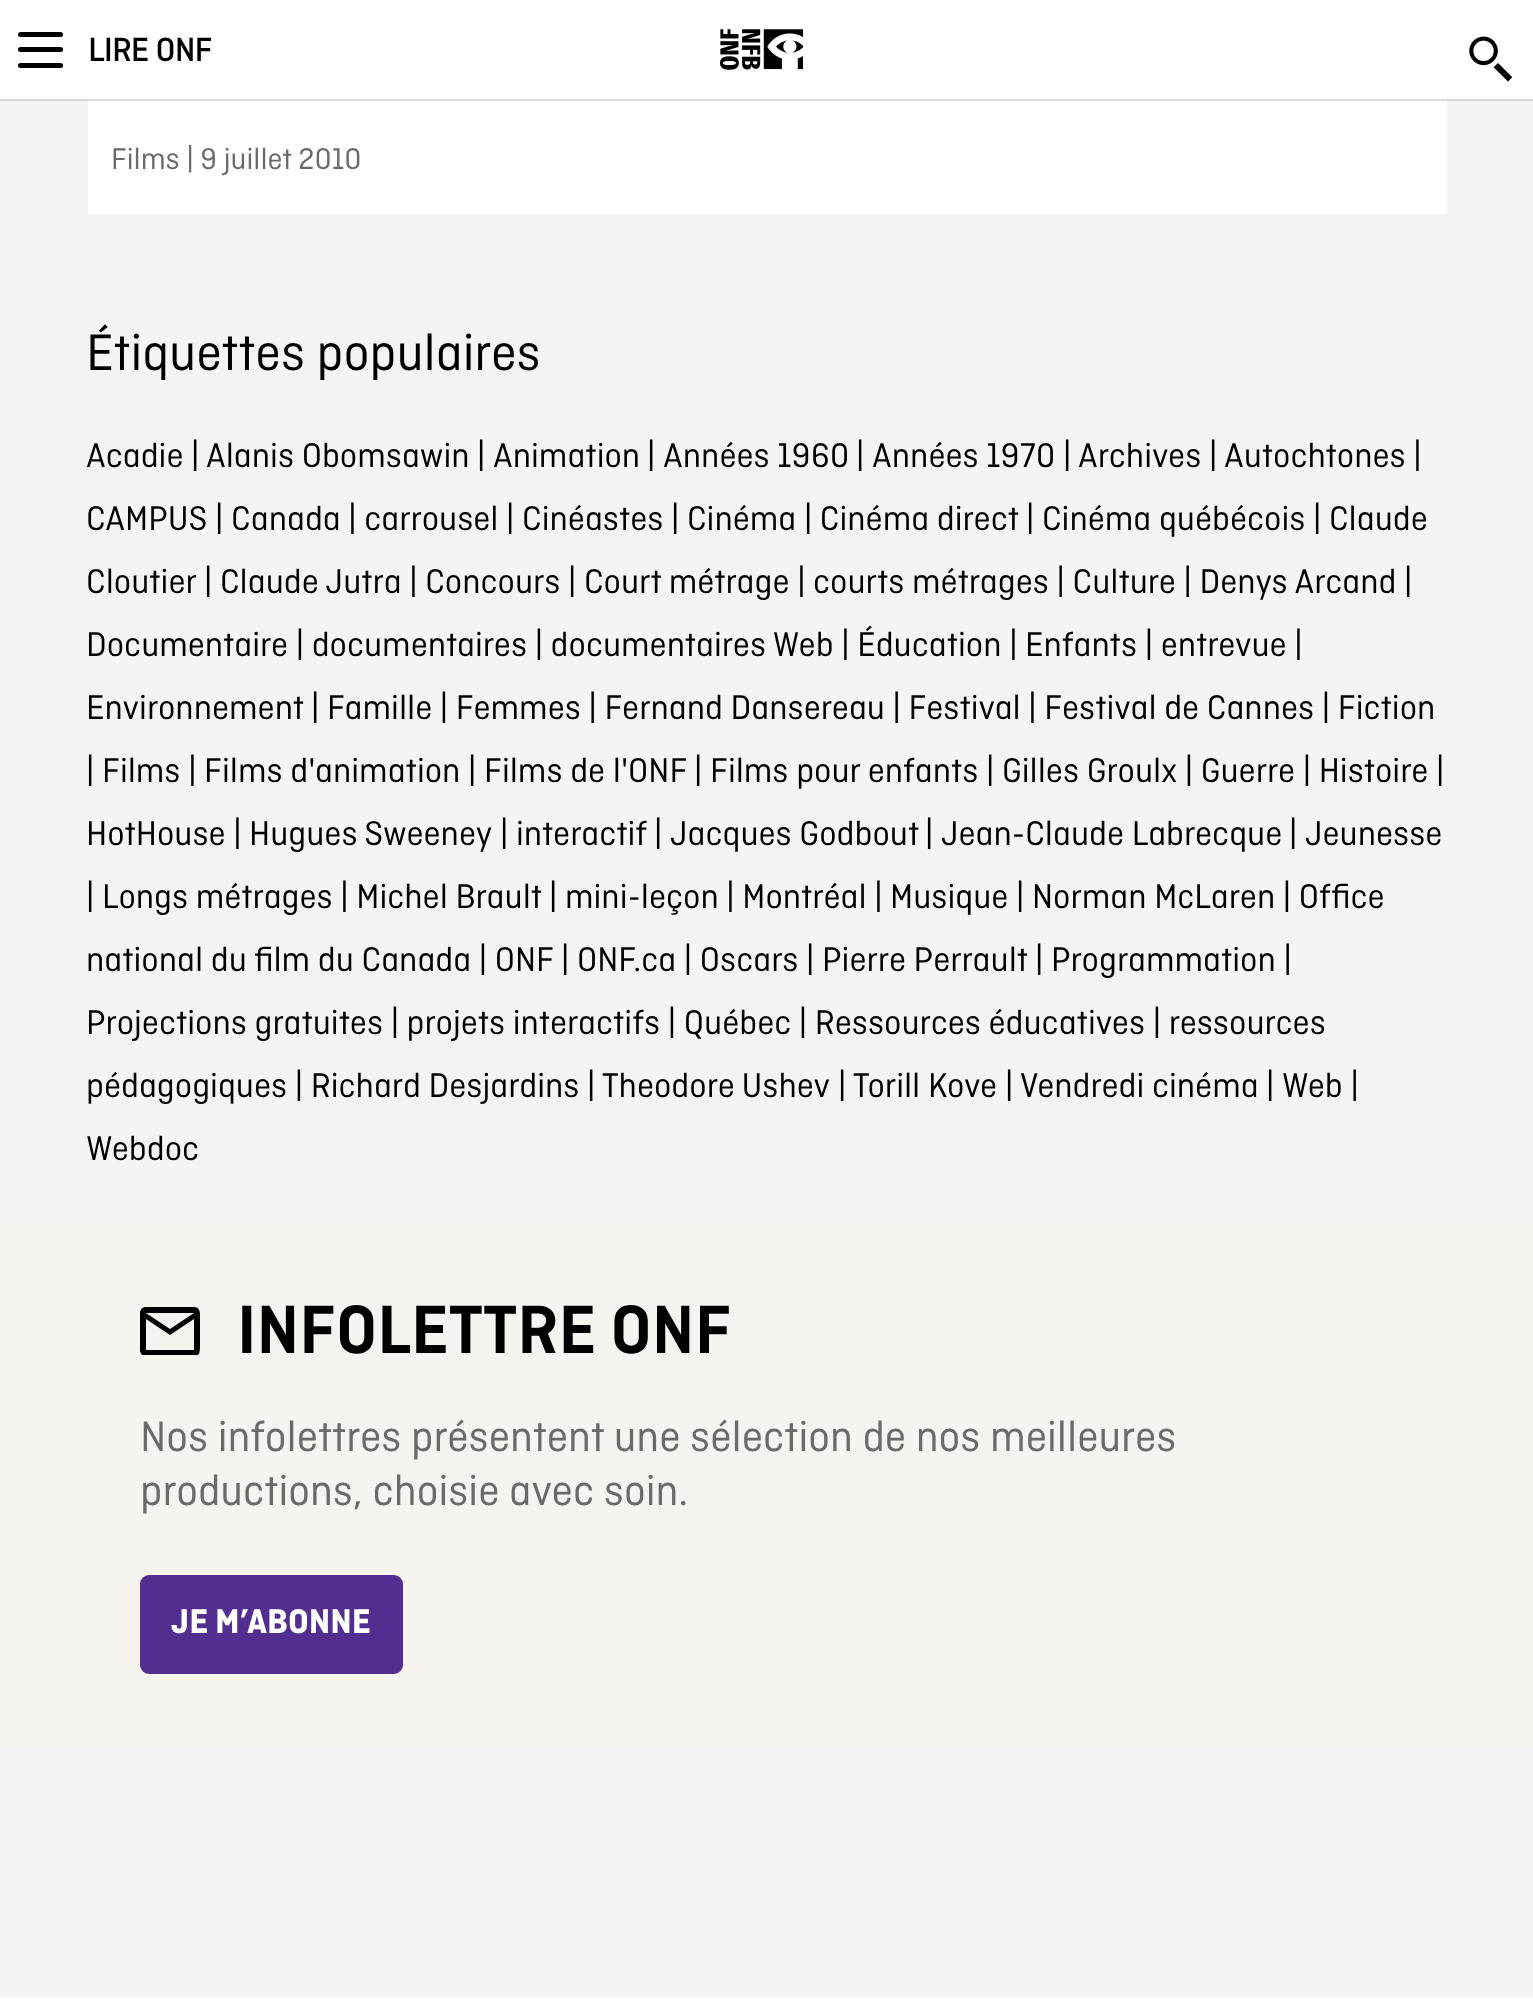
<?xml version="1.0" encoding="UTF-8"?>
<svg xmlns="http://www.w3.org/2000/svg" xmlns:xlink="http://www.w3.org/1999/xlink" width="1533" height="2013">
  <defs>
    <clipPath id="clip1"><rect x="140" y="1307" width="60" height="48" /></clipPath>
  </defs>
  <rect width="100%" height="100%" fill="#f5f4f4" />
  <rect width="1533" height="99" fill="#ffffff" />
  <rect y="99" width="1533" height="2" fill="#d8d9db" />
  <rect x="18" y="32" width="45" height="5" rx="2.5" fill="#000000" />
  <rect x="18" y="47" width="45" height="5" rx="2.5" fill="#000000" />
  <rect x="18" y="63" width="45" height="5" rx="2.5" fill="#000000" />
  <image x="720" y="29" width="83" height="41" xlink:href="image1.png" />
  <image x="1469" y="36" width="44" height="46" xlink:href="image2.png" />
  <rect x="88" y="101" width="1359" height="113" fill="#ffffff" />
  <rect y="1217" width="1533" height="529" fill="#f6f4f0" />
  <g clip-path="url(#clip1)">
    <path d="M 194 1307 c 7 0 6 8 6 12 v 25 c 0 13 -1 12 -14 12 h -16 c -36 0 -30 5 -30 -31 c 0 -4 -3 -18 6 -18 z m 0 43 v -31 l -24 16 l -24 -16 v 31 z m -24 -21 l 24 -16 h -48 z" fill="#000000" />
  </g>
  <rect x="142.5" y="1577.5" width="258" height="94" rx="6.5" fill="#522e91" stroke="#522e91" stroke-width="5" />
  <rect y="1998" width="1533" height="15" fill="#ffffff" />
  <text x="88" y="61" style="font-family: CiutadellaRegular; font-size: 34px; font-weight: bold; fill: #000000">LIRE ONF</text>
  <text x="111" y="169" style="font-family: CiutadellaRegular; font-size: 31.5px; fill: #6b6a69">Films | 9 juillet 2010</text>
  <text x="86" y="370" style="font-family: CiutadellaRegular; font-size: 54px; fill: #000000">Étiquettes populaires</text>
  <text x="86" y="467" style="font-family: CiutadellaRegular; font-size: 36px; fill: #000000">Acadie</text>
  <text x="191" y="467" style="font-family: CiutadellaRegular; font-size: 36px; fill: #000000">|</text>
  <text x="206" y="467" style="font-family: CiutadellaRegular; font-size: 36px; fill: #000000">Alanis Obomsawin</text>
  <text x="477" y="467" style="font-family: CiutadellaRegular; font-size: 36px; fill: #000000">|</text>
  <text x="493" y="467" style="font-family: CiutadellaRegular; font-size: 36px; fill: #000000">Animation</text>
  <text x="647" y="467" style="font-family: CiutadellaRegular; font-size: 36px; fill: #000000">|</text>
  <text x="663" y="467" style="font-family: CiutadellaRegular; font-size: 36px; fill: #000000">Années 1960</text>
  <text x="856" y="467" style="font-family: CiutadellaRegular; font-size: 36px; fill: #000000">|</text>
  <text x="872" y="467" style="font-family: CiutadellaRegular; font-size: 36px; fill: #000000">Années 1970</text>
  <text x="1063" y="467" style="font-family: CiutadellaRegular; font-size: 36px; fill: #000000">|</text>
  <text x="1078" y="467" style="font-family: CiutadellaRegular; font-size: 36px; fill: #000000">Archives</text>
  <text x="1209" y="467" style="font-family: CiutadellaRegular; font-size: 36px; fill: #000000">|</text>
  <text x="1224" y="467" style="font-family: CiutadellaRegular; font-size: 36px; fill: #000000">Autochtones |</text>
  <text x="86" y="530" style="font-family: CiutadellaRegular; font-size: 36px; fill: #000000">CAMPUS | Canada | carrousel | Cinéastes | Cinéma | Cinéma direct</text>
  <text x="1026" y="530" style="font-family: CiutadellaRegular; font-size: 36px; fill: #000000">| Cinéma québécois | Claude</text>
  <text x="86" y="593" style="font-family: CiutadellaRegular; font-size: 36px; fill: #000000">Cloutier</text>
  <text x="204" y="593" style="font-family: CiutadellaRegular; font-size: 36px; fill: #000000">| Claude Jutra | Concours | Court métrage | courts métrages | Culture | Denys Arcand |</text>
  <text x="86" y="656" style="font-family: CiutadellaRegular; font-size: 36px; fill: #000000">Documentaire | documentaires | documentaires Web | Éducation | Enfants | entrevue |</text>
  <text x="86" y="719" style="font-family: CiutadellaRegular; font-size: 36px; fill: #000000">Environnement</text>
  <text x="311" y="719" style="font-family: CiutadellaRegular; font-size: 36px; fill: #000000">| Famille | Femmes | Fernand Dansereau | Festival | Festival de Cannes | Fiction</text>
  <text x="86" y="782" style="font-family: CiutadellaRegular; font-size: 36px; fill: #000000">| Films | Films d'animation | Films de l'ONF</text>
  <text x="694" y="782" style="font-family: CiutadellaRegular; font-size: 36px; fill: #000000">| Films pour enfants | Gilles Groulx | Guerre | Histoire |</text>
  <text x="86" y="845" style="font-family: CiutadellaRegular; font-size: 36px; fill: #000000">HotHouse |</text>
  <text x="249" y="845" word-spacing="-1" style="font-family: CiutadellaRegular; font-size: 36px; fill: #000000">Hugues Sweeney</text>
  <text x="500" y="845" style="font-family: CiutadellaRegular; font-size: 36px; fill: #000000">| interactif</text>
  <text x="654" y="845" style="font-family: CiutadellaRegular; font-size: 36px; fill: #000000">|</text>
  <text x="670" y="845" style="font-family: CiutadellaRegular; font-size: 36px; fill: #000000">Jacques Godbout</text>
  <text x="925" y="845" style="font-family: CiutadellaRegular; font-size: 36px; fill: #000000">|</text>
  <text x="941" y="845" style="font-family: CiutadellaRegular; font-size: 36px; fill: #000000">Jean-Claude Labrecque</text>
  <text x="1289" y="845" style="font-family: CiutadellaRegular; font-size: 36px; fill: #000000">|</text>
  <text x="1305" y="845" style="font-family: CiutadellaRegular; font-size: 36px; fill: #000000">Jeunesse</text>
  <text x="86" y="908" style="font-family: CiutadellaRegular; font-size: 36px; fill: #000000">| Longs métrages | Michel Brault</text>
  <text x="549" y="908" style="font-family: CiutadellaRegular; font-size: 36px; fill: #000000">| mini-leçon | Montréal | Musique | Norman McLaren | Office</text>
  <text x="86" y="971" style="font-family: CiutadellaRegular; font-size: 36px; fill: #000000">national du film du Canada | ONF</text>
  <text x="561" y="971" style="font-family: CiutadellaRegular; font-size: 36px; fill: #000000">| ONF.ca | Oscars | Pierre Perrault</text>
  <text x="1035" y="971" style="font-family: CiutadellaRegular; font-size: 36px; fill: #000000">| Programmation |</text>
  <text x="86" y="1034" style="font-family: CiutadellaRegular; font-size: 36px; fill: #000000">Projections gratuites | projets interactifs | Québec | Ressources éducatives | ressources</text>
  <text x="86" y="1097" style="font-family: CiutadellaRegular; font-size: 36px; fill: #000000">pédagogiques | Richard Desjardins</text>
  <text x="587" y="1097" style="font-family: CiutadellaRegular; font-size: 36px; fill: #000000">|</text>
  <text x="602" y="1097" word-spacing="-1" style="font-family: CiutadellaRegular; font-size: 36px; fill: #000000">Theodore Ushev</text>
  <text x="838" y="1097" style="font-family: CiutadellaRegular; font-size: 36px; fill: #000000">|</text>
  <text x="853" y="1097" style="font-family: CiutadellaRegular; font-size: 36px; fill: #000000">Torill Kove</text>
  <text x="1005" y="1097" style="font-family: CiutadellaRegular; font-size: 36px; fill: #000000">|</text>
  <text x="1020" y="1097" style="font-family: CiutadellaRegular; font-size: 36px; fill: #000000">Vendredi cinéma</text>
  <text x="1266" y="1097" style="font-family: CiutadellaRegular; font-size: 36px; fill: #000000">|</text>
  <text x="1282" y="1097" style="font-family: CiutadellaRegular; font-size: 36px; fill: #000000">Web |</text>
  <text x="86" y="1160" style="font-family: CiutadellaRegular; font-size: 36px; fill: #000000">Webdoc</text>
  <text x="237" y="1353" style="font-family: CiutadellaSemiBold; font-size: 72px; font-weight: 600; fill: #000000">INFOLETTRE ONF</text>
  <text x="140" y="1451" style="font-family: CiutadellaRegular; font-size: 45px; fill: #6b6a69">Nos infolettres présentent une sélection de nos meilleures</text>
  <text x="140" y="1505" style="font-family: CiutadellaRegular; font-size: 45px; fill: #6b6a69">productions, choisie avec soin.</text>
  <text x="171" y="1633" style="font-family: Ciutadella; font-size: 36px; font-weight: bold; fill: #ffffff">JE M’ABONNE</text>
</svg>
